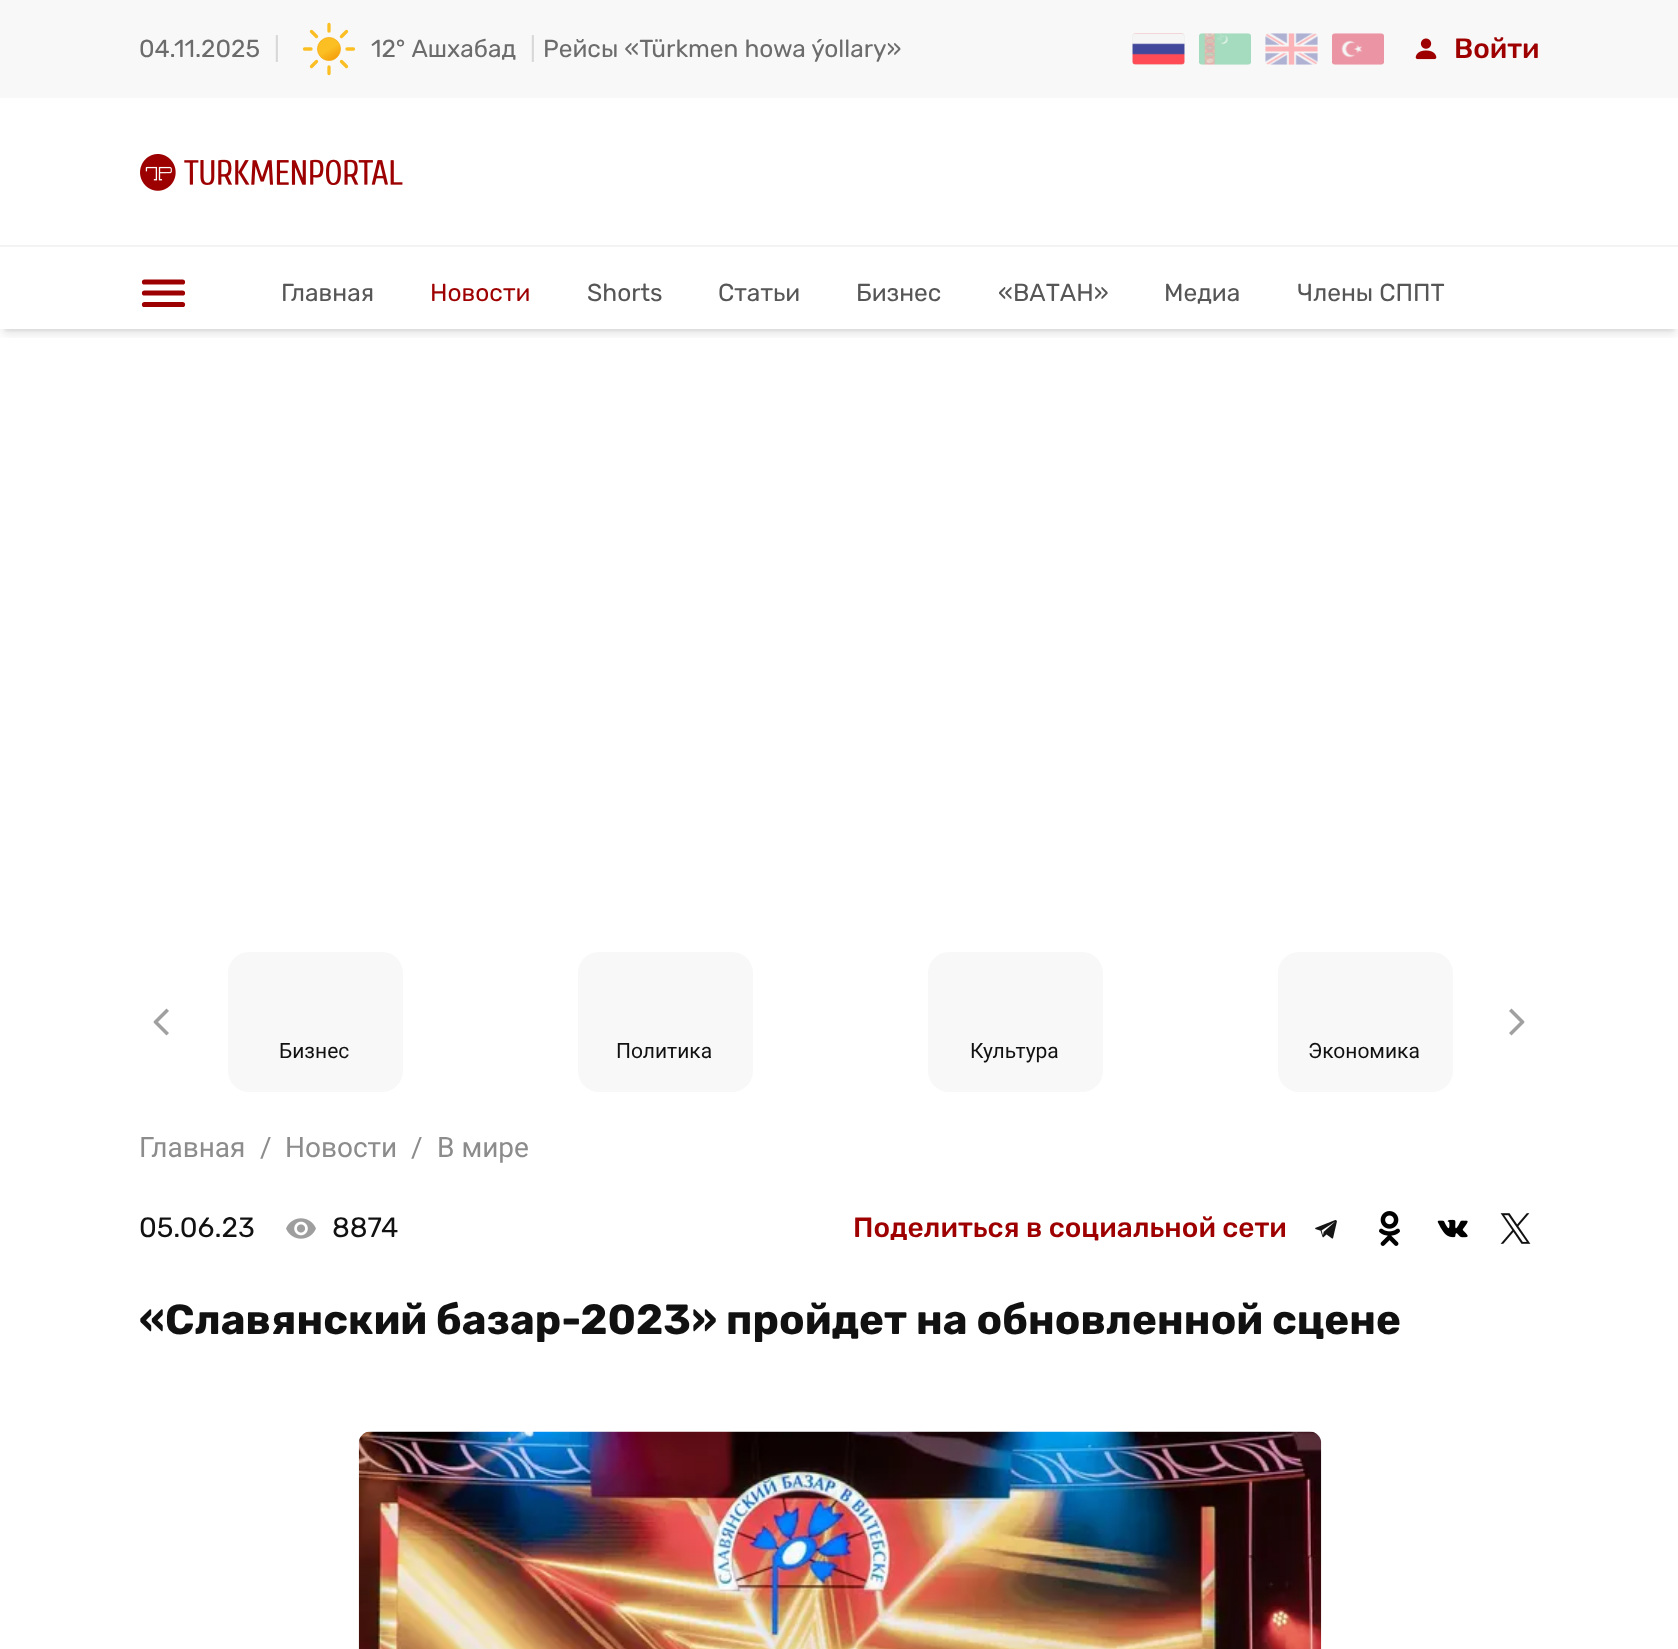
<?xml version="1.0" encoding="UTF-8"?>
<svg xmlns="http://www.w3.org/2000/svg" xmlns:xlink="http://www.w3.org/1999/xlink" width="1678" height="1649">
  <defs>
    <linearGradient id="g1" gradientUnits="userSpaceOnUse" x1="323" y1="39" x2="335" y2="59"><stop offset="0" stop-color="#fbbf24" /><stop offset="0.5" stop-color="#fbbf24" /><stop offset="1" stop-color="#f59e0b" /></linearGradient>
    <clipPath id="clip1"><rect x="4" y="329" width="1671" height="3" /></clipPath>
    <clipPath id="clip2"><rect x="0" y="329" width="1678" height="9" /></clipPath>
  </defs>
  <rect width="100%" height="100%" fill="#ffffff" />
  <rect width="1678" height="98" fill="#f8f8f8" />
  <circle cx="329" cy="49" r="11.5" fill="url(#g1)" stroke="#f8af18" stroke-width="0.8" />
  <path d="M 329 31 v -6.5 m 0 49 v -6.5 m 12.5 -30.5 l 5 -5 m -35 35 l 5 -5 m 0 -25 l -5 -5 m 35 35 l -5 -5 m -30.5 -12.5 h -6.5 m 49 0 h -6.5" fill="none" stroke="#fbbf24" stroke-width="3.3" stroke-linecap="round" />
  <image x="1132" y="33" width="53" height="32" xlink:href="image1.png" />
  <image x="1199" y="33" width="52" height="32" xlink:href="image2.png" />
  <image x="1265" y="33" width="53" height="32" xlink:href="image3.png" />
  <image x="1332" y="33" width="52" height="32" xlink:href="image4.png" />
  <image x="1415" y="38" width="22" height="22" xlink:href="image5.png" />
  <image x="140" y="154" width="263" height="37" xlink:href="image6.png" />
  <rect y="245" width="1678" height="2" fill="#f3f3f3" />
  <g clip-path="url(#clip1)">
    <rect x="4" y="254" width="1671" height="75" fill="#000000" fill-opacity="0.1" filter="blur(3.5px)" />
  </g>
  <g clip-path="url(#clip2)">
    <rect x="2" y="256" width="1675" height="78" fill="#000000" fill-opacity="0.1" filter="blur(5px)" />
  </g>
  <path d="M 144.5 304.5 h 38 m -38 -11.5 h 38 m -38 -11 h 38" fill="none" stroke="#9d0000" stroke-width="5.2" stroke-linecap="round" stroke-linejoin="round" />
  <path d="M 153.5 1021.5 l 13 -13 l 2.5 2.5 l -13 13 z" fill="#a0a0a0" />
  <path d="M 153.5 1022.5 l 2.5 -2.5 l 13 13 l -2.5 2.5 z" fill="#a0a0a0" />
  <path d="M 1524.5 1022.5 l -13 13 l -2.5 -2.5 l 13 -13 z" fill="#a0a0a0" />
  <path d="M 1524.5 1021.5 l -2.5 2.5 l -13 -13 l 2.5 -2.5 z" fill="#a0a0a0" />
  <rect x="228" y="952" width="175" height="140" rx="21" fill="#f8f8f8" />
  <rect x="578" y="952" width="175" height="140" rx="21" fill="#f8f8f8" />
  <rect x="928" y="952" width="175" height="140" rx="21" fill="#f8f8f8" />
  <rect x="1278" y="952" width="175" height="140" rx="21" fill="#f8f8f8" />
  <image x="286" y="1218" width="30" height="21" xlink:href="image7.png" />
  <image x="1315" y="1220" width="22" height="19" xlink:href="image8.png" />
  <image x="1379" y="1211" width="21" height="35" xlink:href="image9.png" />
  <image x="1437" y="1219" width="31" height="19" xlink:href="image10.png" />
  <image x="1500" y="1213" width="31" height="31" xlink:href="image11.png" />
  <image x="358" y="1431" width="964" height="218" xlink:href="image12.png" />
  <text x="139" y="57" style="font-family: Rubik; font-size: 24.5px; fill: #6c6c6c">04.11.2025</text>
  <text x="274" y="57" style="font-family: Rubik; font-size: 24.5px; fill: #d8d8d8">|</text>
  <text x="371" y="57" style="font-family: Rubik; font-size: 24.5px; fill: #6c6c6c">12° Ашхабад</text>
  <text x="530" y="57" style="font-family: Rubik; font-size: 24.5px; fill: #d8d8d8">|</text>
  <text x="543" y="57" style="font-family: Rubik; font-size: 24.5px; fill: #6c6c6c">Рейсы «Türkmen howa ýollary»</text>
  <text x="1454" y="58" style="font-family: Rubik; font-size: 28px; font-weight: 500; fill: #9e0000">Войти</text>
  <text x="281" y="301" style="font-family: Rubik; font-size: 24.5px; fill: #565656">Главная</text>
  <text x="430" y="301" style="font-family: Rubik; font-size: 24.5px; fill: #9e0000">Новости</text>
  <text x="587" y="301" style="font-family: Rubik; font-size: 24.5px; fill: #565656">Shorts</text>
  <text x="718" y="301" style="font-family: Rubik; font-size: 24.5px; fill: #565656">Статьи</text>
  <text x="856" y="301" style="font-family: Rubik; font-size: 24.5px; fill: #565656">Бизнес</text>
  <text x="998" y="301" style="font-family: Rubik; font-size: 24.5px; fill: #565656">«ВАТАН»</text>
  <text x="1164" y="301" style="font-family: Rubik; font-size: 24.5px; fill: #565656">Медиа</text>
  <text x="1297" y="301" style="font-family: Rubik; font-size: 24.5px; fill: #565656">Члены СППТ</text>
  <text x="279" y="1058" style="font-family: Roboto; font-size: 21px; fill: #111111">Бизнес</text>
  <text x="616" y="1058" style="font-family: Roboto; font-size: 21px; fill: #111111">Политика</text>
  <text x="970" y="1058" style="font-family: Roboto; font-size: 21px; fill: #111111">Культура</text>
  <text x="1308" y="1058" style="font-family: Roboto; font-size: 21px; fill: #111111">Экономика</text>
  <text x="139" y="1157" style="font-family: Roboto; font-size: 28px; fill: #8c8c8c">Главная</text>
  <text x="260" y="1157" style="font-family: Roboto; font-size: 28px; fill: #8c8c8c">/</text>
  <text x="285" y="1157" style="font-family: Roboto; font-size: 28px; fill: #8c8c8c">Новости</text>
  <text x="411" y="1157" style="font-family: Roboto; font-size: 28px; fill: #8c8c8c">/</text>
  <text x="437" y="1157" style="font-family: Roboto; font-size: 28px; fill: #8c8c8c">В мире</text>
  <text x="139" y="1237" style="font-family: Rubik; font-size: 28px; fill: #111111">05.06.23</text>
  <text x="332" y="1237" style="font-family: Rubik; font-size: 28px; fill: #111111">8874</text>
  <text x="853" y="1237" style="font-family: Rubik; font-size: 28px; font-weight: 500; fill: #9e0000">Поделиться в социальной сети</text>
  <text x="139" y="1334" style="font-family: Rubik; font-size: 42px; font-weight: bold; fill: #111111">«Славянский базар-2023» пройдет на обновленной сцене</text>
</svg>
